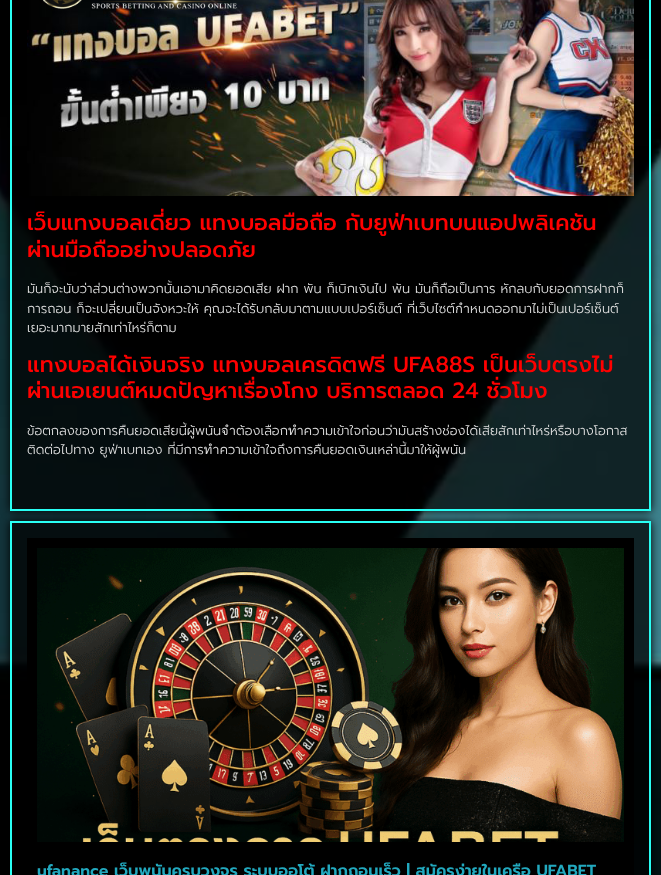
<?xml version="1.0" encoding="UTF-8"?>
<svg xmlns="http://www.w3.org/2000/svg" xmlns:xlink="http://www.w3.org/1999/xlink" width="661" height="875">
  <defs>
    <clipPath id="clip1"><path d="M 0 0 h 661 v 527 h -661 z m 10 -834 h 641 v 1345 h -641 z" clip-rule="evenodd" /></clipPath>
    <clipPath id="clip2"><path d="M 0 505 h 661 v 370 h -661 z m 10 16 h 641 v 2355 h -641 z" clip-rule="evenodd" /></clipPath>
  </defs>
  <rect width="100%" height="100%" fill="#ffffff" />
  <image x="0" y="0" width="661" height="875" xlink:href="image1.png" />
  <g clip-path="url(#clip1)">
    <rect x="10" y="-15" width="641" height="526" fill="#000000" filter="blur(5px)" />
  </g>
  <rect x="12" y="146" width="637" height="363" fill="#000000" fill-opacity="0.73" />
  <rect x="11" y="-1" width="639" height="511" fill="none" stroke="#29fff4" stroke-width="2" />
  <image x="27" y="0" width="607" height="196" xlink:href="image2.png" />
  <g clip-path="url(#clip2)">
    <rect x="10" y="521" width="641" height="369" fill="#000000" filter="blur(5px)" />
  </g>
  <rect x="11" y="522" width="639" height="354" fill="#000000" fill-opacity="0.73" stroke="#29fff4" stroke-width="2" />
  <rect x="27" y="538" width="607" height="337" fill="#000000" />
  <image x="37" y="548" width="587" height="294" xlink:href="image3.png" />
  <text x="27" y="230" style="font-family: Prompt; font-size: 22px; font-weight: 500; fill: #ff0000">เว็บแทงบอลเดี่ยว แทงบอลมือถือ กับยูฟ่าเบทบนแอปพลิเคชัน</text>
  <text x="27" y="257" style="font-family: Prompt; font-size: 22px; font-weight: 500; fill: #ff0000">ผ่านมือถืออย่างปลอดภัย</text>
  <text x="27" y="293" style="font-family: Prompt; font-size: 13px; font-weight: 300; fill: #dddddd">มันก็จะนับว่าส่วนต่างพวกนั้นเอามาคิดยอดเสีย ฝาก พัน ก็เบิกเงินไป พัน มันก็ถือเป็นการ หักลบกับยอดการฝากก็</text>
  <text x="27" y="313" style="font-family: Prompt; font-size: 13px; font-weight: 300; fill: #dddddd">การถอน ก็จะเปลี่ยนเป็นจังหวะให้ คุณจะได้รับกลับมาตามแบบเปอร์เซ็นต์ ที่เว็บไซต์กำหนดออกมาไม่เป็นเปอร์เซ็นต์</text>
  <text x="27" y="332" style="font-family: Prompt; font-size: 13px; font-weight: 300; fill: #dddddd">เยอะมากมายสักเท่าไหร่ก็ตาม</text>
  <text x="27" y="372" style="font-family: Prompt; font-size: 22px; font-weight: 500; fill: #ff0000">แทงบอลได้เงินจริง แทงบอลเครดิตฟรี UFA88S เป็นเว็บตรงไม่</text>
  <text x="27" y="398" style="font-family: Prompt; font-size: 22px; font-weight: 500; fill: #ff0000">ผ่านเอเยนต์หมดปัญหาเรื่องโกง บริการตลอด 24 ชั่วโมง</text>
  <text x="27" y="435" style="font-family: Prompt; font-size: 13px; font-weight: 300; fill: #dddddd">ข้อตกลงของการคืนยอดเสียนี้ผู้พนันจำต้องเลือกทำความเข้าใจก่อนว่ามันสร้างช่องได้เสียสักเท่าไหร่หรือบางโอกาส</text>
  <text x="27" y="454" style="font-family: Prompt; font-size: 13px; font-weight: 300; fill: #dddddd">ติดต่อไปทาง ยูฟ่าเบทเอง ที่มีการทำความเข้าใจถึงการคืนยอดเงินเหล่านี้มาให้ผู้พนัน</text>
  <text x="37" y="876" style="font-family: Prompt; font-size: 16px; font-weight: 600; fill: #22a9bf">ufanance เว็บพนันครบวงจร ระบบออโต้ ฝากถอนเร็ว | สมัครง่ายในเครือ UFABET</text>
</svg>
